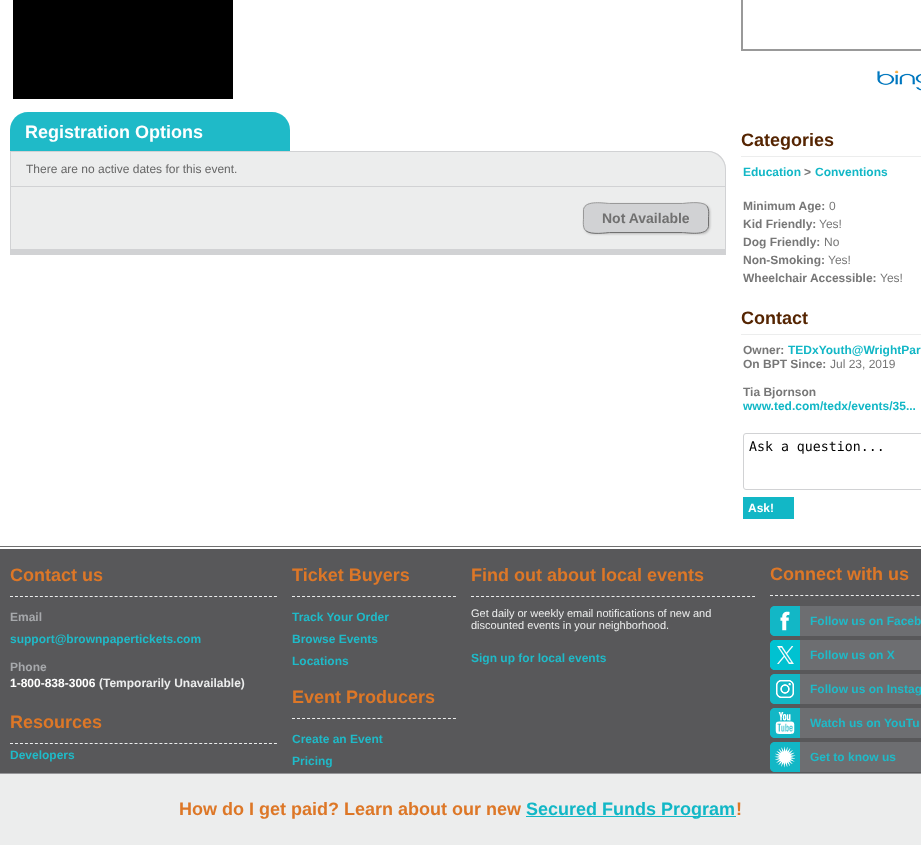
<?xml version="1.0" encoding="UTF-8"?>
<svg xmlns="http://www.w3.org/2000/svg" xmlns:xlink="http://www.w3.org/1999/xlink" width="921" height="845">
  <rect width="100%" height="100%" fill="#ffffff" />
  <rect x="13" width="220" height="99" fill="#000000" />
  <path d="M 28 112 h 244 c 10 0 18 8 18 18 v 21 h -280 v -21 c 0 -10 8 -18 18 -18 z" fill="#1fbac8" />
  <path d="M 10 151 h 698 c 10 0 18 8 18 18 v 17 h -716 z" fill="#eceded" />
  <path d="M 10 151 h 698 c 10 0 18 8 18 18 v 17 h -716 z m 1 1 h 697 c 9 0 17 8 17 17 v 17 h -714 z" fill="#d1d2d4" fill-rule="evenodd" />
  <rect x="11" y="187" width="714" height="62" fill="#eceded" />
  <rect x="10" y="186" width="716" height="1" fill="#d1d2d4" />
  <rect x="725" y="186" width="1" height="69" fill="#d1d2d4" />
  <rect x="10" y="249" width="716" height="6" fill="#d1d2d4" />
  <rect x="10" y="186" width="1" height="69" fill="#d1d2d4" />
  <rect x="584" y="204" width="126" height="30" rx="8" fill="#b8b8b8" filter="blur(1px)" />
  <rect x="583" y="203" width="126" height="30" rx="8" fill="#d1d2d4" />
  <path d="M 706.5 205.5 c 3 3.5 2 8.5 2 12.5 v 8.5 c -2 10 -21.5 6 -26 6 h -73 c -2 0 -18.5 3 -24 -2" fill="none" stroke="#707070" />
  <path d="M 585.5 230.5 c -3 -3.5 -2 -8.5 -2 -12.5 v -8.5 c 2 -10 21.5 -6 26 -6 h 73 c 2 0 18.5 -3 24 2" fill="none" stroke="#999999" />
  <rect x="742" y="-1" width="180" height="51" fill="none" stroke="#999999" stroke-width="2" />
  <image x="877" y="70" width="44" height="21" xlink:href="image1.png" />
  <rect x="741" y="156" width="180" height="1" fill="#eceded" />
  <rect x="741" y="334" width="180" height="1" fill="#eceded" />
  <rect x="743.5" y="433.5" width="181" height="56" rx="2.5" fill="none" stroke="#d1d2d4" />
  <rect x="743" y="497" width="51" height="22" fill="#12b7c6" />
  <rect y="546" width="921" height="1" fill="#707070" />
  <rect y="549" width="921" height="224" fill="#58585a" />
  <path d="M 10 596.5 h 267" fill="none" stroke="#eceded" stroke-dasharray="3 1.98" />
  <path d="M 10 743.5 h 267" fill="none" stroke="#eceded" stroke-dasharray="3 1.98" />
  <path d="M 292 596.5 h 164" fill="none" stroke="#eceded" stroke-dasharray="3 2.03" />
  <path d="M 292 718.5 h 164" fill="none" stroke="#eceded" stroke-dasharray="3 2.03" />
  <path d="M 471 596.5 h 284" fill="none" stroke="#eceded" stroke-dasharray="3 2.02" />
  <path d="M 770 595.5 h 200" fill="none" stroke="#eceded" stroke-dasharray="3 2.05" />
  <image x="770" y="606" width="30" height="30" xlink:href="image2.png" />
  <rect x="800" y="606" width="121" height="30" fill="#6d6e71" />
  <image x="770" y="640" width="30" height="30" xlink:href="image3.png" />
  <rect x="800" y="640" width="121" height="30" fill="#6d6e71" />
  <image x="770" y="674" width="30" height="30" xlink:href="image4.png" />
  <rect x="800" y="674" width="121" height="30" fill="#6d6e71" />
  <image x="770" y="708" width="30" height="30" xlink:href="image5.png" />
  <rect x="800" y="708" width="121" height="30" fill="#6d6e71" />
  <image x="770" y="742" width="30" height="30" xlink:href="image6.png" />
  <rect x="800" y="742" width="121" height="30" fill="#6d6e71" />
  <rect y="774" width="921" height="71" fill="#eceded" />
  <rect y="773" width="921" height="1" fill="#969699" />
  <rect x="526" y="816" width="210" height="1" fill="#12b7c6" />
  <text x="25" y="138" style="font-family: Liberation Sans; font-size: 18px; font-weight: bold; fill: #ffffff">Registration Options</text>
  <text x="26" y="173" style="font-family: Liberation Sans; font-size: 12px; fill: #666666">There are no active dates for this event.</text>
  <text x="602" y="223" style="font-family: Liberation Sans; font-size: 14px; font-weight: bold; fill: #707070">Not Available</text>
  <text x="741" y="146" style="font-family: Liberation Sans; font-size: 18px; font-weight: bold; fill: #552502">Categories</text>
  <text x="743" y="176" style="font-family: Liberation Sans; font-size: 12px; font-weight: bold; fill: #12b7c6">Education</text>
  <text x="804" y="176" style="font-family: Liberation Sans; font-size: 12px; font-weight: bold; fill: #777777">&gt;</text>
  <text x="815" y="176" style="font-family: Liberation Sans; font-size: 12px; font-weight: bold; fill: #12b7c6">Conventions</text>
  <text x="743" y="210" style="font-family: Liberation Sans; font-size: 12px; font-weight: bold; fill: #777777">Minimum Age:</text>
  <text x="829" y="210" style="font-family: Liberation Sans; font-size: 12px; fill: #777777">0</text>
  <text x="743" y="228" style="font-family: Liberation Sans; font-size: 12px; font-weight: bold; fill: #777777">Kid Friendly:</text>
  <text x="819" y="228" style="font-family: Liberation Sans; font-size: 12px; fill: #777777">Yes!</text>
  <text x="743" y="246" style="font-family: Liberation Sans; font-size: 12px; font-weight: bold; fill: #777777">Dog Friendly:</text>
  <text x="824" y="246" style="font-family: Liberation Sans; font-size: 12px; fill: #777777">No</text>
  <text x="743" y="264" style="font-family: Liberation Sans; font-size: 12px; font-weight: bold; fill: #777777">Non-Smoking:</text>
  <text x="828" y="264" style="font-family: Liberation Sans; font-size: 12px; fill: #777777">Yes!</text>
  <text x="743" y="282" style="font-family: Liberation Sans; font-size: 12px; font-weight: bold; fill: #777777">Wheelchair Accessible:</text>
  <text x="880" y="282" style="font-family: Liberation Sans; font-size: 12px; fill: #777777">Yes!</text>
  <text x="741" y="324" style="font-family: Liberation Sans; font-size: 18px; font-weight: bold; fill: #552502">Contact</text>
  <text x="743" y="354" style="font-family: Liberation Sans; font-size: 12px; font-weight: bold; fill: #777777">Owner:</text>
  <text x="788" y="354" style="font-family: Liberation Sans; font-size: 12px; font-weight: bold; fill: #12b7c6">TEDxYouth@WrightPar</text>
  <text x="743" y="368" style="font-family: Liberation Sans; font-size: 12px; font-weight: bold; fill: #777777">On BPT Since:</text>
  <text x="830" y="368" style="font-family: Liberation Sans; font-size: 12px; fill: #777777">Jul 23, 2019</text>
  <text x="743" y="396" style="font-family: Liberation Sans; font-size: 12px; font-weight: bold; fill: #777777">Tia Bjornson</text>
  <text x="743" y="410" style="font-family: Liberation Sans; font-size: 12px; font-weight: bold; fill: #12b7c6">www.ted.com/tedx/events/35...</text>
  <text x="749" y="451" style="font-family: DejaVu Sans Mono; font-size: 13.25px; fill: #000000">Ask a question...</text>
  <text x="748" y="512" style="font-family: Liberation Sans; font-size: 12px; font-weight: bold; fill: #ffffff">Ask!</text>
  <text x="10" y="581" style="font-family: Liberation Sans; font-size: 18px; font-weight: bold; fill: #dd7727">Contact us</text>
  <text x="10" y="621" style="font-family: Liberation Sans; font-size: 12px; font-weight: bold; fill: #a7a9ac">Email</text>
  <text x="10" y="643" style="font-family: Liberation Sans; font-size: 12px; font-weight: bold; fill: #1fbac8">support@brownpapertickets.com</text>
  <text x="10" y="671" style="font-family: Liberation Sans; font-size: 12px; font-weight: bold; fill: #a7a9ac">Phone</text>
  <text x="10" y="687" style="font-family: Liberation Sans; font-size: 12px; font-weight: bold; fill: #ffffff">1-800-838-3006</text>
  <text x="99" y="687" style="font-family: Liberation Sans; font-size: 12px; font-weight: bold; fill: #eceded">(Temporarily Unavailable)</text>
  <text x="10" y="728" style="font-family: Liberation Sans; font-size: 18px; font-weight: bold; fill: #dd7727">Resources</text>
  <text x="10" y="759" style="font-family: Liberation Sans; font-size: 12px; font-weight: bold; fill: #1fbac8">Developers</text>
  <text x="292" y="581" style="font-family: Liberation Sans; font-size: 18px; font-weight: bold; fill: #dd7727">Ticket Buyers</text>
  <text x="292" y="621" style="font-family: Liberation Sans; font-size: 12px; font-weight: bold; fill: #1fbac8">Track Your Order</text>
  <text x="292" y="643" style="font-family: Liberation Sans; font-size: 12px; font-weight: bold; fill: #1fbac8">Browse Events</text>
  <text x="292" y="665" style="font-family: Liberation Sans; font-size: 12px; font-weight: bold; fill: #1fbac8">Locations</text>
  <text x="292" y="703" style="font-family: Liberation Sans; font-size: 18px; font-weight: bold; fill: #dd7727">Event Producers</text>
  <text x="292" y="743" style="font-family: Liberation Sans; font-size: 12px; font-weight: bold; fill: #1fbac8">Create an Event</text>
  <text x="292" y="765" style="font-family: Liberation Sans; font-size: 12px; font-weight: bold; fill: #1fbac8">Pricing</text>
  <text x="471" y="581" style="font-family: Liberation Sans; font-size: 18px; font-weight: bold; fill: #dd7727">Find out about local events</text>
  <text x="471" y="617" style="font-family: Liberation Sans; font-size: 11px; fill: #eceded">Get daily or weekly email notifications of new and</text>
  <text x="471" y="629" style="font-family: Liberation Sans; font-size: 11px; fill: #eceded">discounted events in your neighborhood.</text>
  <text x="471" y="662" style="font-family: Liberation Sans; font-size: 12px; font-weight: bold; fill: #1fbac8">Sign up for local events</text>
  <text x="770" y="580" style="font-family: Liberation Sans; font-size: 18px; font-weight: bold; fill: #dd7727">Connect with us</text>
  <text x="810" y="625" style="font-family: Liberation Sans; font-size: 12px; font-weight: bold; fill: #1fbac8">Follow us on Faceb</text>
  <text x="810" y="659" style="font-family: Liberation Sans; font-size: 12px; font-weight: bold; fill: #1fbac8">Follow us on X</text>
  <text x="810" y="693" style="font-family: Liberation Sans; font-size: 12px; font-weight: bold; fill: #1fbac8">Follow us on Instag</text>
  <text x="810" y="727" style="font-family: Liberation Sans; font-size: 12px; font-weight: bold; fill: #1fbac8">Watch us on YouTu</text>
  <text x="810" y="761" style="font-family: Liberation Sans; font-size: 12px; font-weight: bold; fill: #1fbac8">Get to know us</text>
  <text x="179" y="815" style="font-family: Liberation Sans; font-size: 18px; font-weight: bold; fill: #dd7727">How do I get paid? Learn about our new</text>
  <text x="526" y="815" style="font-family: Liberation Sans; font-size: 18px; font-weight: bold; fill: #12b7c6">Secured Funds Program</text>
  <text x="736" y="815" style="font-family: Liberation Sans; font-size: 18px; font-weight: bold; fill: #dd7727">!</text>
</svg>
